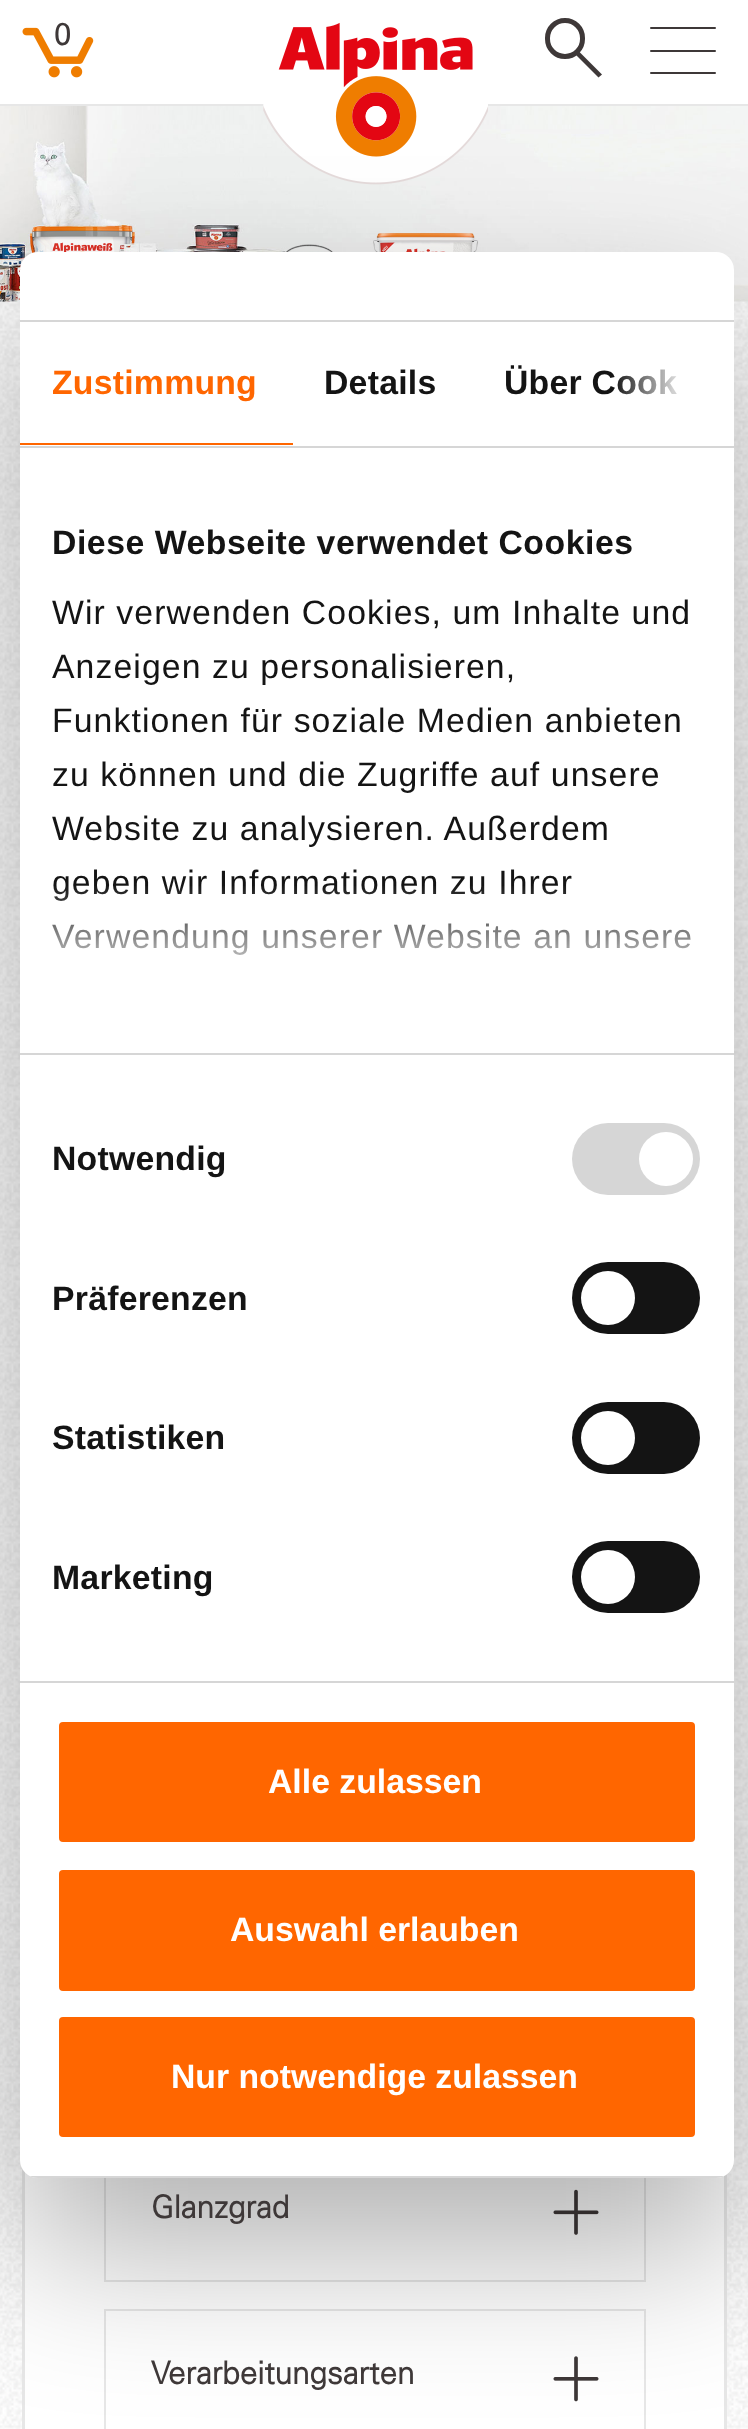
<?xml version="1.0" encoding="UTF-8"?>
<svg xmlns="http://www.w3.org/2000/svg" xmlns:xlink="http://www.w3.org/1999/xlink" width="748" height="2429">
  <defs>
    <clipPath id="clip1"><rect x="20" y="252" width="714" height="1926" rx="18" /></clipPath>
    <linearGradient id="g1" gradientUnits="userSpaceOnUse" x1="732" y1="384" x2="613" y2="384"><stop offset="0" stop-color="#ffffff" /><stop offset="0.5" stop-color="#ffffff" stop-opacity="0.8" /><stop offset="1" stop-color="#ffffff" stop-opacity="0" /></linearGradient>
    <linearGradient id="g2" gradientUnits="userSpaceOnUse" x1="361" y1="1053" x2="361" y2="884"><stop offset="0" stop-color="#ffffff" /><stop offset="0.5" stop-color="#ffffff" stop-opacity="0.8" /><stop offset="1" stop-color="#ffffff" stop-opacity="0" /></linearGradient>
  </defs>
  <rect width="100%" height="100%" fill="#ffffff" />
  <image x="0" y="301" width="748" height="2128" xlink:href="image1.png" />
  <rect y="104" width="748" height="2" fill="#e7e7e7" />
  <rect x="547.5" y="20.5" width="35" height="36" rx="17.5" fill="none" stroke="#3e3838" stroke-width="5" />
  <path d="M 578 50.5 l 24 24 l -3.5 3 l -23.5 -23.5 z" fill="#3e3838" />
  <rect x="650" y="50" width="66" height="2" rx="1" fill="#3e3838" />
  <rect x="650" y="27" width="66" height="2" rx="1" fill="#3e3838" />
  <rect x="650" y="72" width="66" height="2" rx="1" fill="#3e3838" />
  <image x="0" y="106" width="748" height="196" xlink:href="image4.png" />
  <image x="263" y="22" width="225" height="163" xlink:href="image3.png" />
  <rect x="25" y="2172" width="699" height="257" fill="#ffffff" />
  <path d="M 727 740 v 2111 l -3 -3 v -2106 z" fill="#e7e7e7" />
  <path d="M 22 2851 v -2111 l 3 2 v 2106 z" fill="#e7e7e7" />
  <rect x="105" y="2143" width="540" height="138" fill="none" stroke="#e7e7e7" stroke-width="2" />
  <image x="553" y="2189" width="46" height="46" xlink:href="image5.png" />
  <rect x="105" y="2310" width="540" height="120" fill="none" stroke="#e7e7e7" stroke-width="2" />
  <image x="553" y="2356" width="46" height="46" xlink:href="image6.png" />
  <rect x="20" y="324" width="714" height="1926" rx="18" fill="#000000" fill-opacity="0.3" filter="blur(76.5px)" />
  <rect x="20" y="252" width="714" height="1926" rx="18" fill="#ffffff" />
  <rect x="20" y="320" width="714" height="2" fill="#d6d6d6" />
  <rect x="20" y="446" width="714" height="2" fill="#d6d6d6" />
  <rect x="20" y="443" width="273" height="2" fill="#ff6600" />
  <rect x="20" y="1053" width="714" height="2" fill="#d6d6d6" />
  <rect x="20" y="1681" width="714" height="2" fill="#d6d6d6" />
  <rect x="572" y="1123" width="128" height="72" rx="36" fill="#d6d6d6" />
  <circle cx="666" cy="1159" r="27" fill="#ffffff" />
  <rect x="572" y="1262" width="128" height="72" rx="36" fill="#141414" />
  <circle cx="608" cy="1298" r="27" fill="#ffffff" />
  <rect x="572" y="1402" width="128" height="72" rx="36" fill="#141414" />
  <circle cx="608" cy="1438" r="27" fill="#ffffff" />
  <rect x="572" y="1541" width="128" height="72" rx="36" fill="#141414" />
  <circle cx="608" cy="1577" r="27" fill="#ffffff" />
  <g clip-path="url(#clip1)">
    <rect x="30" y="2176" width="694" height="2" fill="#d6d6d6" />
  </g>
  <rect x="56.5" y="1719.5" width="641" height="125" rx="6.5" fill="#ff6600" stroke="#ffffff" stroke-width="5" />
  <rect x="56.5" y="1867.5" width="641" height="126" rx="6.5" fill="#ff6600" stroke="#ffffff" stroke-width="5" />
  <rect x="56.5" y="2014.5" width="641" height="125" rx="6.5" fill="#ff6600" stroke="#ffffff" stroke-width="5" />
  <text x="54" y="45" style="font-family: Univers; font-size: 31.5px; fill: #3e3838">0</text>
  <image x="22" y="27" width="72" height="51" xlink:href="image2.png" />
  <text x="151" y="2218" style="font-family: Univers; font-size: 31.5px; font-weight: bold; fill: #3e3838">Glanzgrad</text>
  <text x="151" y="2384" style="font-family: Univers; font-size: 31.5px; font-weight: bold; fill: #3e3838">Verarbeitungsarten</text>
  <text x="52" y="394" style="font-family: Liberation Sans; font-size: 33.75px; font-weight: bold; letter-spacing: 0.25px; fill: #ff6600">Zustimmung</text>
  <text x="324" y="394" style="font-family: Liberation Sans; font-size: 33.75px; font-weight: bold; letter-spacing: 0.25px; fill: #141414">Details</text>
  <text x="504" y="394" style="font-family: Liberation Sans; font-size: 33.75px; font-weight: bold; letter-spacing: 0.25px; fill: #141414">Über Cook</text>
  <rect x="617" y="369" width="60" height="26" fill="url(#g1)" />
  <text x="52" y="554" style="font-family: Liberation Sans; font-size: 33.75px; font-weight: bold; letter-spacing: 0.55px; fill: #141414">Diese Webseite verwendet Cookies</text>
  <text x="52" y="624" style="font-family: Liberation Sans; font-size: 33.75px; letter-spacing: 1.1px; fill: #141414">Wir verwenden Cookies, um Inhalte und</text>
  <text x="52" y="678" style="font-family: Liberation Sans; font-size: 33.75px; letter-spacing: 1.1px; fill: #141414">Anzeigen zu personalisieren,</text>
  <text x="52" y="732" style="font-family: Liberation Sans; font-size: 33.75px; letter-spacing: 1.1px; fill: #141414">Funktionen für soziale Medien anbieten</text>
  <text x="52" y="786" style="font-family: Liberation Sans; font-size: 33.75px; letter-spacing: 1.1px; fill: #141414">zu können und die Zugriffe auf unsere</text>
  <text x="52" y="840" style="font-family: Liberation Sans; font-size: 33.75px; letter-spacing: 1.1px; fill: #141414">Website zu analysieren. Außerdem</text>
  <text x="52" y="894" style="font-family: Liberation Sans; font-size: 33.75px; letter-spacing: 1.1px; fill: #141414">geben wir Informationen zu Ihrer</text>
  <text x="52" y="948" style="font-family: Liberation Sans; font-size: 33.75px; letter-spacing: 1.1px; fill: #141414">Verwendung unserer Website an unsere</text>
  <rect x="52" y="886" width="640" height="69" fill="url(#g2)" />
  <text x="52" y="1170" style="font-family: Liberation Sans; font-size: 33.75px; font-weight: bold; letter-spacing: 0.25px; fill: #141414">Notwendig</text>
  <text x="52" y="1310" style="font-family: Liberation Sans; font-size: 33.75px; font-weight: bold; letter-spacing: 0.25px; fill: #141414">Präferenzen</text>
  <text x="52" y="1449" style="font-family: Liberation Sans; font-size: 33.75px; font-weight: bold; letter-spacing: 0.25px; fill: #141414">Statistiken</text>
  <text x="52" y="1589" style="font-family: Liberation Sans; font-size: 33.75px; font-weight: bold; letter-spacing: 0.25px; fill: #141414">Marketing</text>
  <text x="268" y="1793" style="font-family: Liberation Sans; font-size: 33.75px; font-weight: bold; fill: #ffffff">Alle zulassen</text>
  <text x="230" y="1941" style="font-family: Liberation Sans; font-size: 33.75px; font-weight: bold; fill: #ffffff">Auswahl erlauben</text>
  <text x="171" y="2088" style="font-family: Liberation Sans; font-size: 33.75px; font-weight: bold; fill: #ffffff">Nur notwendige zulassen</text>
</svg>
